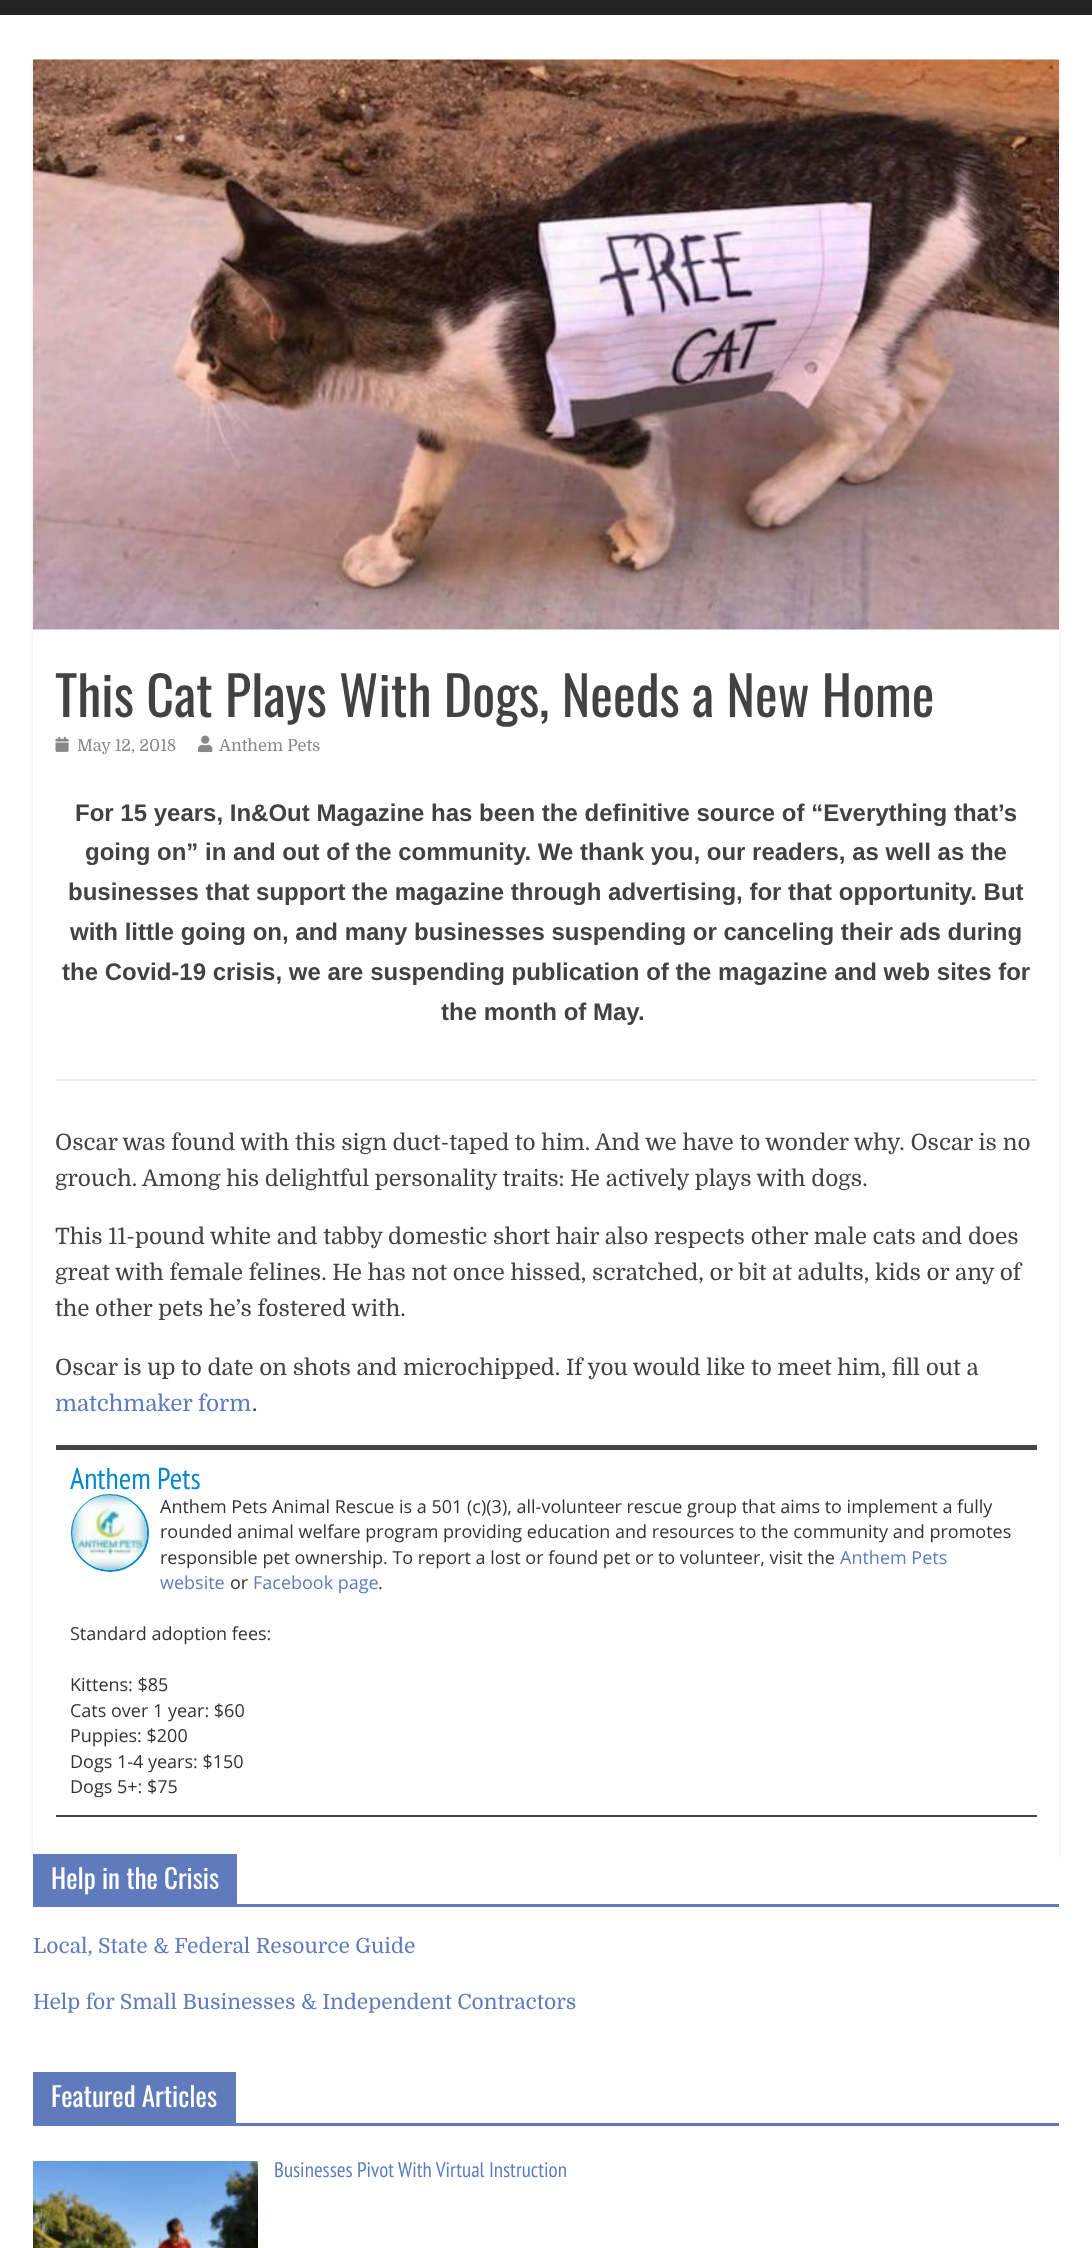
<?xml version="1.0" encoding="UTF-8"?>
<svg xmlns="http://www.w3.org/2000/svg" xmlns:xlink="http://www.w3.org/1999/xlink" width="1092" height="2248">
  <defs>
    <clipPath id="clip1"><path d="M 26 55 h 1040 v 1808 h -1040 z m 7 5 h 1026 v 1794 h -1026 z" clip-rule="evenodd" /></clipPath>
  </defs>
  <rect width="100%" height="100%" fill="#ffffff" />
  <rect width="1092" height="15" fill="#232323" />
  <g clip-path="url(#clip1)">
    <rect x="33" y="62" width="1026" height="1794" fill="#000000" fill-opacity="0.1" filter="blur(2px)" />
  </g>
  <image x="33" y="59" width="1026" height="571" xlink:href="image1.png" />
  <image x="55" y="736" width="14" height="16" xlink:href="image2.png" />
  <image x="198" y="735" width="15" height="18" xlink:href="image3.png" />
  <rect x="56" y="1079" width="981" height="2" fill="#eaeaea" />
  <rect x="56" y="1445" width="981" height="5" fill="#444444" />
  <rect x="56" y="1815" width="981" height="2" fill="#444444" />
  <circle cx="110" cy="1533" r="38" fill="none" stroke="#0088cc" stroke-width="2" />
  <image x="72" y="1495" width="75" height="75" xlink:href="image4.png" />
  <rect x="33" y="1854" width="1026" height="5" fill="#ffffff" />
  <rect x="33" y="1904" width="1026" height="3" fill="#607bbd" />
  <rect x="33" y="1854" width="204" height="50" fill="#607bbd" />
  <rect x="33" y="2123" width="1026" height="3" fill="#607bbd" />
  <rect x="33" y="2072" width="203" height="51" fill="#607bbd" />
  <image x="33" y="2161" width="225" height="87" xlink:href="image5.png" />
  <text x="55" y="717" style="font-family: Oswald; font-size: 54px; fill: #424242">This Cat Plays With Dogs, Needs a New Home</text>
  <text x="77" y="751" style="font-family: Domine; font-size: 16.5px; fill: #888888">May 12, 2018</text>
  <text x="219" y="751" style="font-family: Domine; font-size: 16.5px; fill: #888888">Anthem Pets</text>
  <text x="75" y="821" style="font-family: Liberation Sans; font-size: 24px; font-weight: bold; fill: #424242">For 15 years, In&amp;Out Magazine has been the definitive source of “Everything that’s</text>
  <text x="85" y="860" style="font-family: Liberation Sans; font-size: 24px; font-weight: bold; fill: #424242">going on” in and out of the community. We thank you, our readers, as well as the</text>
  <text x="68" y="900" style="font-family: Liberation Sans; font-size: 24px; font-weight: bold; fill: #424242">businesses that support the magazine through advertising, for that opportunity. But</text>
  <text x="70" y="940" style="font-family: Liberation Sans; font-size: 24px; font-weight: bold; fill: #424242">with little going on, and many businesses suspending or canceling their ads during</text>
  <text x="62" y="980" style="font-family: Liberation Sans; font-size: 24px; font-weight: bold; fill: #424242">the Covid-19 crisis, we are suspending publication of the magazine and web sites for</text>
  <text x="441" y="1020" style="font-family: Liberation Sans; font-size: 24px; font-weight: bold; fill: #424242">the month of May.</text>
  <text x="55" y="1150" style="font-family: Domine; font-size: 22.5px; fill: #424242">Oscar was found with this sign duct-taped to him. And we have to wonder why. Oscar is no</text>
  <text x="55" y="1186" style="font-family: Domine; font-size: 22.5px; fill: #424242">grouch. Among his delightful personality traits: He actively plays with dogs.</text>
  <text x="55" y="1244" style="font-family: Domine; font-size: 22.5px; fill: #424242">This 11-pound white and tabby domestic short hair also respects other male cats and does</text>
  <text x="55" y="1280" style="font-family: Domine; font-size: 22.5px; fill: #424242">great with female felines. He has not once hissed, scratched, or bit at adults, kids or any of</text>
  <text x="55" y="1316" style="font-family: Domine; font-size: 22.5px; fill: #424242">the other pets he’s fostered with.</text>
  <text x="55" y="1375" style="font-family: Domine; font-size: 22.5px; fill: #424242">Oscar is up to date on shots and microchipped. If you would like to meet him, fill out a</text>
  <text x="55" y="1411" style="font-family: Domine; font-size: 22.5px; fill: #607bbd">matchmaker form</text>
  <text x="252" y="1411" style="font-family: Domine; font-size: 22.5px; fill: #424242">.</text>
  <text x="70" y="1489" style="font-family: PT Sans Narrow; font-size: 30px; fill: #0088cc">Anthem Pets</text>
  <text x="160" y="1513" style="font-family: Open Sans; font-size: 18px; fill: #333333">Anthem Pets Animal Rescue is a 501 (c)(3), all-volunteer rescue group that aims to implement a fully</text>
  <text x="160" y="1538" style="font-family: Open Sans; font-size: 18px; fill: #333333">rounded animal welfare program providing education and resources to the community and promotes</text>
  <text x="160" y="1564" style="font-family: Open Sans; font-size: 18px; fill: #333333">responsible pet ownership. To report a lost or found pet or to volunteer, visit the</text>
  <text x="840" y="1564" style="font-family: Open Sans; font-size: 18px; fill: #607bbd">Anthem Pets</text>
  <text x="160" y="1589" style="font-family: Open Sans; font-size: 18px; fill: #607bbd">website</text>
  <text x="230" y="1589" style="font-family: Open Sans; font-size: 18px; fill: #333333">or</text>
  <text x="253" y="1589" style="font-family: Open Sans; font-size: 18px; fill: #607bbd">Facebook page</text>
  <text x="378" y="1589" style="font-family: Open Sans; font-size: 18px; fill: #333333">.</text>
  <text x="70" y="1640" style="font-family: Open Sans; font-size: 18px; fill: #333333">Standard adoption fees:</text>
  <text x="70" y="1691" style="font-family: Open Sans; font-size: 18px; fill: #333333">Kittens: $85</text>
  <text x="70" y="1717" style="font-family: Open Sans; font-size: 18px; fill: #333333">Cats over 1 year: $60</text>
  <text x="70" y="1742" style="font-family: Open Sans; font-size: 18px; fill: #333333">Puppies: $200</text>
  <text x="70" y="1768" style="font-family: Open Sans; font-size: 18px; fill: #333333">Dogs 1-4 years: $150</text>
  <text x="70" y="1793" style="font-family: Open Sans; font-size: 18px; fill: #333333">Dogs 5+: $75</text>
  <text x="51" y="1889" style="font-family: Oswald; font-size: 27px; fill: #ffffff">Help in the Crisis</text>
  <text x="33" y="1953" style="font-family: Domine; font-size: 21px; fill: #607bbd">Local, State &amp; Federal Resource Guide</text>
  <text x="33" y="2009" style="font-family: Domine; font-size: 21px; fill: #607bbd">Help for Small Businesses &amp; Independent Contractors</text>
  <text x="51" y="2107" style="font-family: Oswald; font-size: 27px; fill: #ffffff">Featured Articles</text>
  <text x="274" y="2177" style="font-family: PT Sans Narrow; font-size: 21px; fill: #607bbd">Businesses Pivot With Virtual Instruction</text>
</svg>
